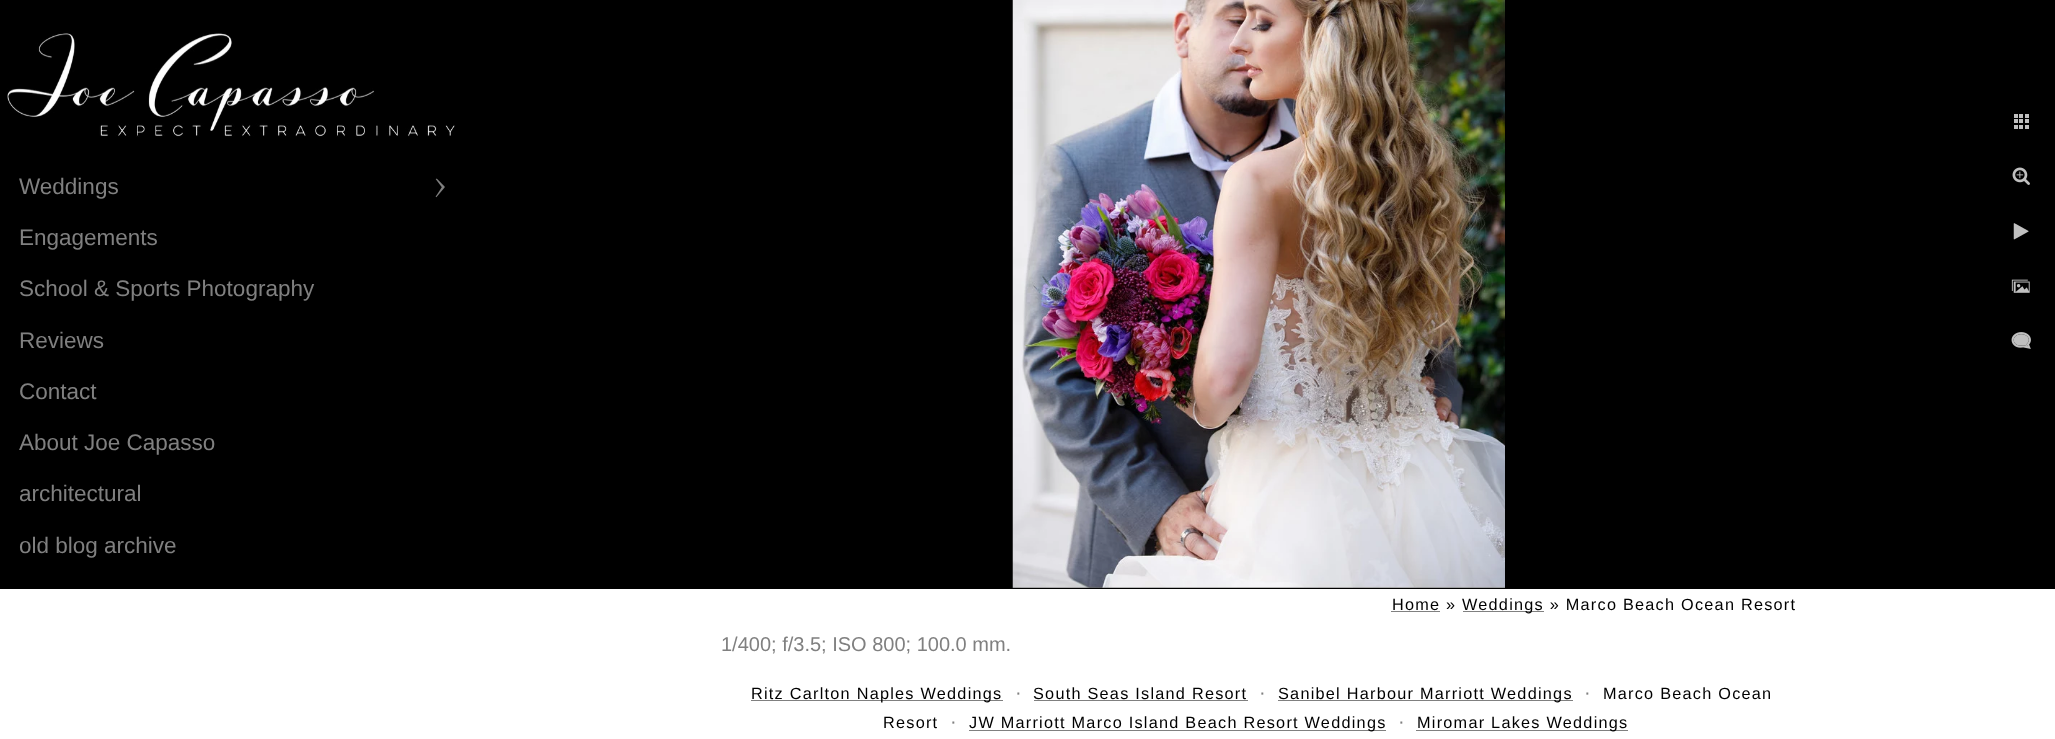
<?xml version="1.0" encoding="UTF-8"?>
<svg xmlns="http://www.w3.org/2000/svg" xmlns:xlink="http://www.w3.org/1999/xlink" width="2055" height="739">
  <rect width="100%" height="100%" fill="#000000" />
  <image x="7" y="33" width="448" height="104" xlink:href="image1.png" />
  <image x="435" y="178" width="10" height="20" xlink:href="image2.png" />
  <image x="1012" y="0" width="493" height="588" xlink:href="image3.png" />
  <image x="2014" y="114" width="15" height="15" xlink:href="image4.png" />
  <image x="2012" y="167" width="18" height="18" xlink:href="image5.png" />
  <image x="2013" y="223" width="16" height="17" xlink:href="image6.png" />
  <image x="2011" y="279" width="19" height="14" xlink:href="image7.png" />
  <image x="2011" y="332" width="20" height="17" xlink:href="image8.png" />
  <rect y="589" width="2055" height="150" fill="#ffffff" />
  <rect x="1391" y="611" width="49" height="1" fill="#808080" />
  <rect x="1463" y="611" width="81" height="1" fill="#808080" />
  <rect x="751" y="700" width="252" height="1" fill="#808080" />
  <rect x="1034" y="700" width="214" height="1" fill="#808080" />
  <rect x="1278" y="700" width="295" height="1" fill="#808080" />
  <rect x="969" y="730" width="417" height="1" fill="#808080" />
  <rect x="1416" y="730" width="212" height="1" fill="#808080" />
  <text x="19" y="194" style="font-family: Liberation Sans; font-size: 22.5px; fill: #808080">Weddings</text>
  <text x="19" y="245" style="font-family: Liberation Sans; font-size: 22.5px; fill: #808080">Engagements</text>
  <text x="19" y="296" style="font-family: Liberation Sans; font-size: 22.5px; fill: #808080">School &amp; Sports Photography</text>
  <text x="19" y="348" style="font-family: Liberation Sans; font-size: 22.5px; fill: #808080">Reviews</text>
  <text x="19" y="399" style="font-family: Liberation Sans; font-size: 22.5px; fill: #808080">Contact</text>
  <text x="19" y="450" style="font-family: Liberation Sans; font-size: 22.5px; fill: #808080">About Joe Capasso</text>
  <text x="19" y="501" style="font-family: Liberation Sans; font-size: 22.5px; fill: #808080">architectural</text>
  <text x="19" y="553" style="font-family: Liberation Sans; font-size: 22.5px; fill: #808080">old blog archive</text>
  <text x="1392" y="610" style="font-family: Liberation Sans; font-size: 16.25px; letter-spacing: 1.25px; fill: #000000">Home »</text>
  <text x="1462" y="610" style="font-family: Liberation Sans; font-size: 16.25px; letter-spacing: 1.25px; fill: #000000">Weddings » Marco Beach Ocean Resort</text>
  <text x="721" y="651" style="font-family: Liberation Sans; font-size: 20px; fill: #808080">1/400; f/3.5; ISO 800; 100.0 mm.</text>
  <text x="751" y="699" style="font-family: Liberation Sans; font-size: 16.25px; letter-spacing: 1.25px; fill: #000000">Ritz Carlton Naples Weddings</text>
  <text x="1015" y="699" style="font-family: Liberation Sans; font-size: 20px; fill: #808080">·</text>
  <text x="1033" y="699" style="font-family: Liberation Sans; font-size: 16.25px; letter-spacing: 1.25px; fill: #000000">South Seas Island Resort</text>
  <text x="1259" y="699" style="font-family: Liberation Sans; font-size: 20px; fill: #808080">·</text>
  <text x="1278" y="699" style="font-family: Liberation Sans; font-size: 16.25px; letter-spacing: 1.25px; fill: #000000">Sanibel Harbour Marriott Weddings</text>
  <text x="1584" y="699" style="font-family: Liberation Sans; font-size: 20px; fill: #808080">·</text>
  <text x="1603" y="699" style="font-family: Liberation Sans; font-size: 16.25px; letter-spacing: 1.25px; fill: #000000">Marco Beach Ocean</text>
  <text x="883" y="728" style="font-family: Liberation Sans; font-size: 16.25px; letter-spacing: 1.25px; fill: #000000">Resort</text>
  <text x="950" y="728" style="font-family: Liberation Sans; font-size: 20px; fill: #808080">·</text>
  <text x="969" y="728" style="font-family: Liberation Sans; font-size: 16.25px; letter-spacing: 1.25px; fill: #000000">JW Marriott Marco Island Beach Resort Weddings</text>
  <text x="1398" y="728" style="font-family: Liberation Sans; font-size: 20px; fill: #808080">·</text>
  <text x="1417" y="728" style="font-family: Liberation Sans; font-size: 16.25px; letter-spacing: 1.25px; fill: #000000">Miromar Lakes Weddings</text>
</svg>
